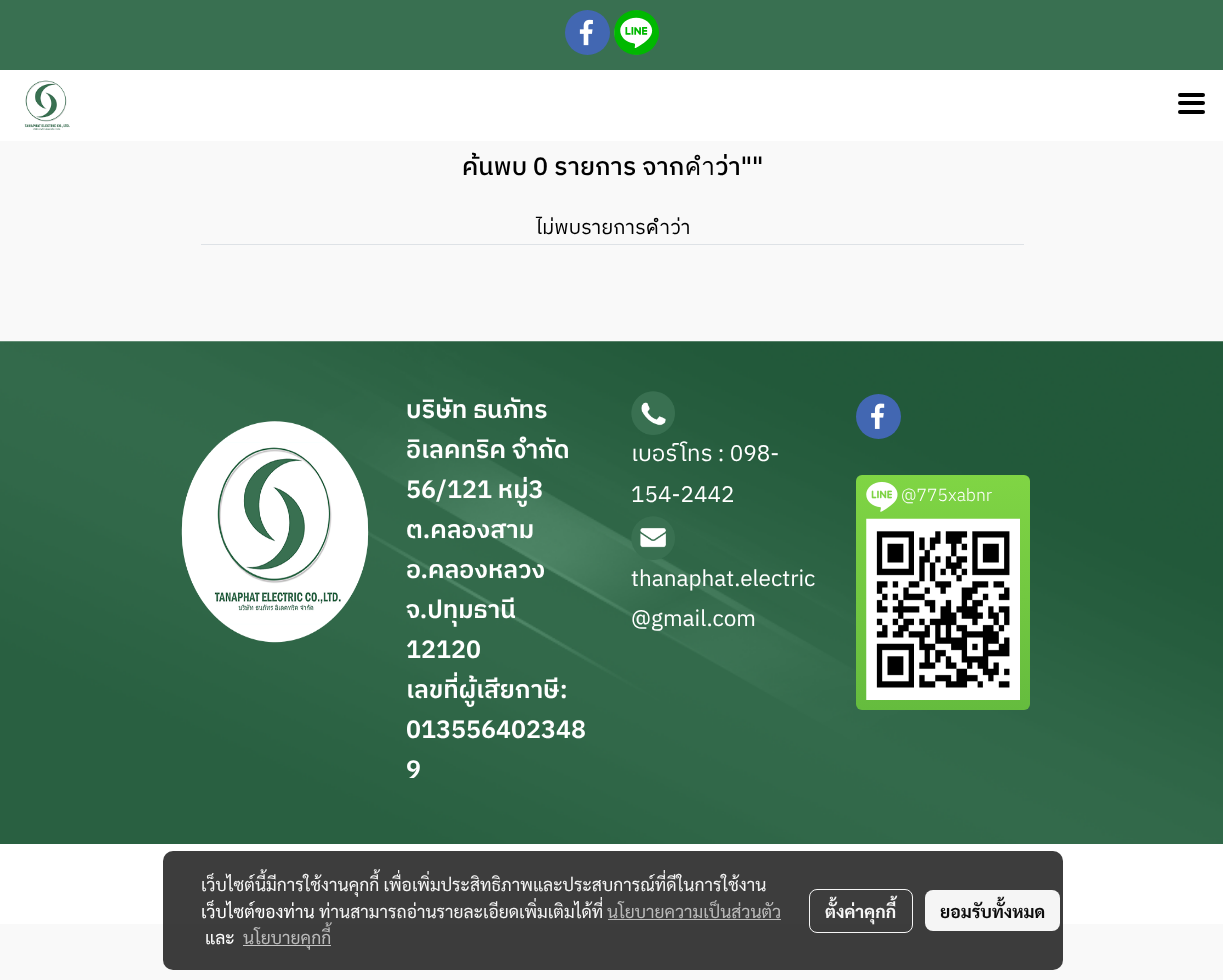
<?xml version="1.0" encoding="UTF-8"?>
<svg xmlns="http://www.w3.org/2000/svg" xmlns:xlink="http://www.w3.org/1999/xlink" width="1223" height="980">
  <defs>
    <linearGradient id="g1" gradientUnits="userSpaceOnUse" x1="943" y1="475" x2="943" y2="710"><stop offset="0" stop-color="#80d544" /><stop offset="1" stop-color="#65bc3e" /></linearGradient>
  </defs>
  <rect width="100%" height="100%" fill="#f9f9f9" />
  <rect y="70" width="1223" height="71" fill="#ffffff" />
  <rect width="1223" height="70" fill="#397051" />
  <circle cx="587.5" cy="32.5" r="22.5" fill="#4267b2" />
  <image x="579" y="19" width="14" height="27" xlink:href="image1.png" />
  <circle cx="636.5" cy="32.5" r="22.5" fill="#00b800" />
  <image x="614" y="10" width="39" height="45" xlink:href="image2.png" />
  <image x="24" y="80" width="46" height="50" xlink:href="image3.png" />
  <rect x="1178" y="101" width="27" height="4" rx="2" fill="#000000" />
  <rect x="1178" y="93" width="27" height="4" rx="2" fill="#000000" />
  <rect x="1178" y="110" width="27" height="4" rx="2" fill="#000000" />
  <rect x="201" y="244" width="823" height="1" fill="#dee2e6" />
  <image x="0" y="341" width="1223" height="503" xlink:href="image4.png" />
  <image x="181" y="421" width="188" height="222" xlink:href="image5.png" />
  <image x="631" y="391" width="44" height="44" xlink:href="image6.png" />
  <image x="631" y="516" width="44" height="44" xlink:href="image7.png" />
  <circle cx="878.5" cy="416.5" r="22.5" fill="#4267b2" />
  <image x="871" y="403" width="14" height="26" xlink:href="image8.png" />
  <rect x="856" y="475" width="174" height="235" rx="6" fill="url(#g1)" />
  <image x="866" y="481" width="32" height="31" xlink:href="image9.png" />
  <image x="866" y="518" width="154" height="182" xlink:href="image10.png" />
  <rect y="844" width="1223" height="80" fill="#ffffff" />
  <rect x="163" y="851" width="900" height="119" rx="10" fill="#000000" fill-opacity="0.76" />
  <rect x="608" y="919" width="173" height="1" fill="#c2c2c2" fill-opacity="0.95" />
  <rect x="243" y="945" width="88" height="1" fill="#c5c5c5" />
  <rect x="809.5" y="889.5" width="103" height="43" rx="7.5" fill="none" stroke="#f5f5f5" />
  <rect x="925" y="890" width="135" height="41" rx="8" fill="#f5f5f5" />
  <text x="462" y="175" style="font-family: IBM Plex Sans Thai; font-size: 25px; font-weight: 500; fill: #000000">ค้นพบ 0 รายการ จากคำว่า""</text>
  <text x="536" y="234" style="font-family: IBM Plex Sans Thai; font-size: 20px; fill: #000000">ไม่พบรายการคำว่า</text>
  <text x="406" y="418" style="font-family: IBM Plex Sans Thai; font-size: 25px; font-weight: 600; fill: #ffffff">บริษัท ธนภัทร</text>
  <text x="406" y="458" style="font-family: IBM Plex Sans Thai; font-size: 25px; font-weight: 600; fill: #ffffff">อิเลคทริค จำกัด</text>
  <text x="406" y="498" style="font-family: IBM Plex Sans Thai; font-size: 25px; font-weight: 600; fill: #ffffff">56/121 หมู่3</text>
  <text x="406" y="538" style="font-family: IBM Plex Sans Thai; font-size: 25px; font-weight: 600; fill: #ffffff">ต.คลองสาม</text>
  <text x="406" y="578" style="font-family: IBM Plex Sans Thai; font-size: 25px; font-weight: 600; fill: #ffffff">อ.คลองหลวง</text>
  <text x="406" y="618" style="font-family: IBM Plex Sans Thai; font-size: 25px; font-weight: 600; fill: #ffffff">จ.ปทุมธานี</text>
  <text x="406" y="658" style="font-family: IBM Plex Sans Thai; font-size: 25px; font-weight: 600; fill: #ffffff">12120</text>
  <text x="406" y="698" style="font-family: IBM Plex Sans Thai; font-size: 25px; font-weight: 600; fill: #ffffff">เลขที่ผู้เสียกาษี:</text>
  <text x="406" y="738" style="font-family: IBM Plex Sans Thai; font-size: 25px; font-weight: 600; fill: #ffffff">013556402348</text>
  <text x="406" y="778" style="font-family: IBM Plex Sans Thai; font-size: 25px; font-weight: 600; fill: #ffffff">9</text>
  <text x="631" y="461" style="font-family: IBM Plex Sans Thai; font-size: 22.5px; fill: #ffffff">เบอร์โทร : 098-</text>
  <text x="631" y="502" style="font-family: IBM Plex Sans Thai; font-size: 22.5px; fill: #ffffff">154-2442</text>
  <text x="631" y="586" style="font-family: IBM Plex Sans Thai; font-size: 22.5px; fill: #ffffff">thanaphat.electric</text>
  <text x="631" y="626" style="font-family: IBM Plex Sans Thai; font-size: 22.5px; fill: #ffffff">@gmail.com</text>
  <text x="901" y="501" style="font-family: IBM Plex Sans Thai; font-size: 17.5px; font-weight: 300; fill: #ffffff">@775xabnr</text>
  <text x="201" y="891" style="font-family: Sarabun; font-size: 17.5px; fill: #f5f5f5">เว็บไซต์นี้มีการใช้งานคุกกี้ เพื่อเพิ่มประสิทธิภาพและประสบการณ์ที่ดีในการใช้งาน</text>
  <text x="201" y="918" style="font-family: Sarabun; font-size: 17.5px; fill: #ffffff">เว็บไซต์ของท่าน</text>
  <text x="319" y="918" style="font-family: Sarabun; font-size: 17.5px; fill: #f5f5f5">ท่านสามารถอ่านรายละเอียดเพิ่มเติมได้ที่</text>
  <text x="607" y="918" style="font-family: Sarabun; font-size: 17.5px; fill: #bbbbbb">นโยบายความเป็นส่วนตัว</text>
  <text x="205" y="944" style="font-family: Sarabun; font-size: 17.5px; fill: #ffffff">และ</text>
  <text x="243" y="944" style="font-family: Sarabun; font-size: 17.5px; fill: #bbbbbb">นโยบายคุกกี้</text>
  <text x="825" y="918" style="font-family: Sarabun; font-size: 17.5px; font-weight: bold; fill: #f5f5f5">ตั้งค่าคุกกี้</text>
  <text x="940" y="918" style="font-family: Sarabun; font-size: 17.5px; font-weight: bold; fill: #0d0d0d">ยอมรับทั้งหมด</text>
</svg>
